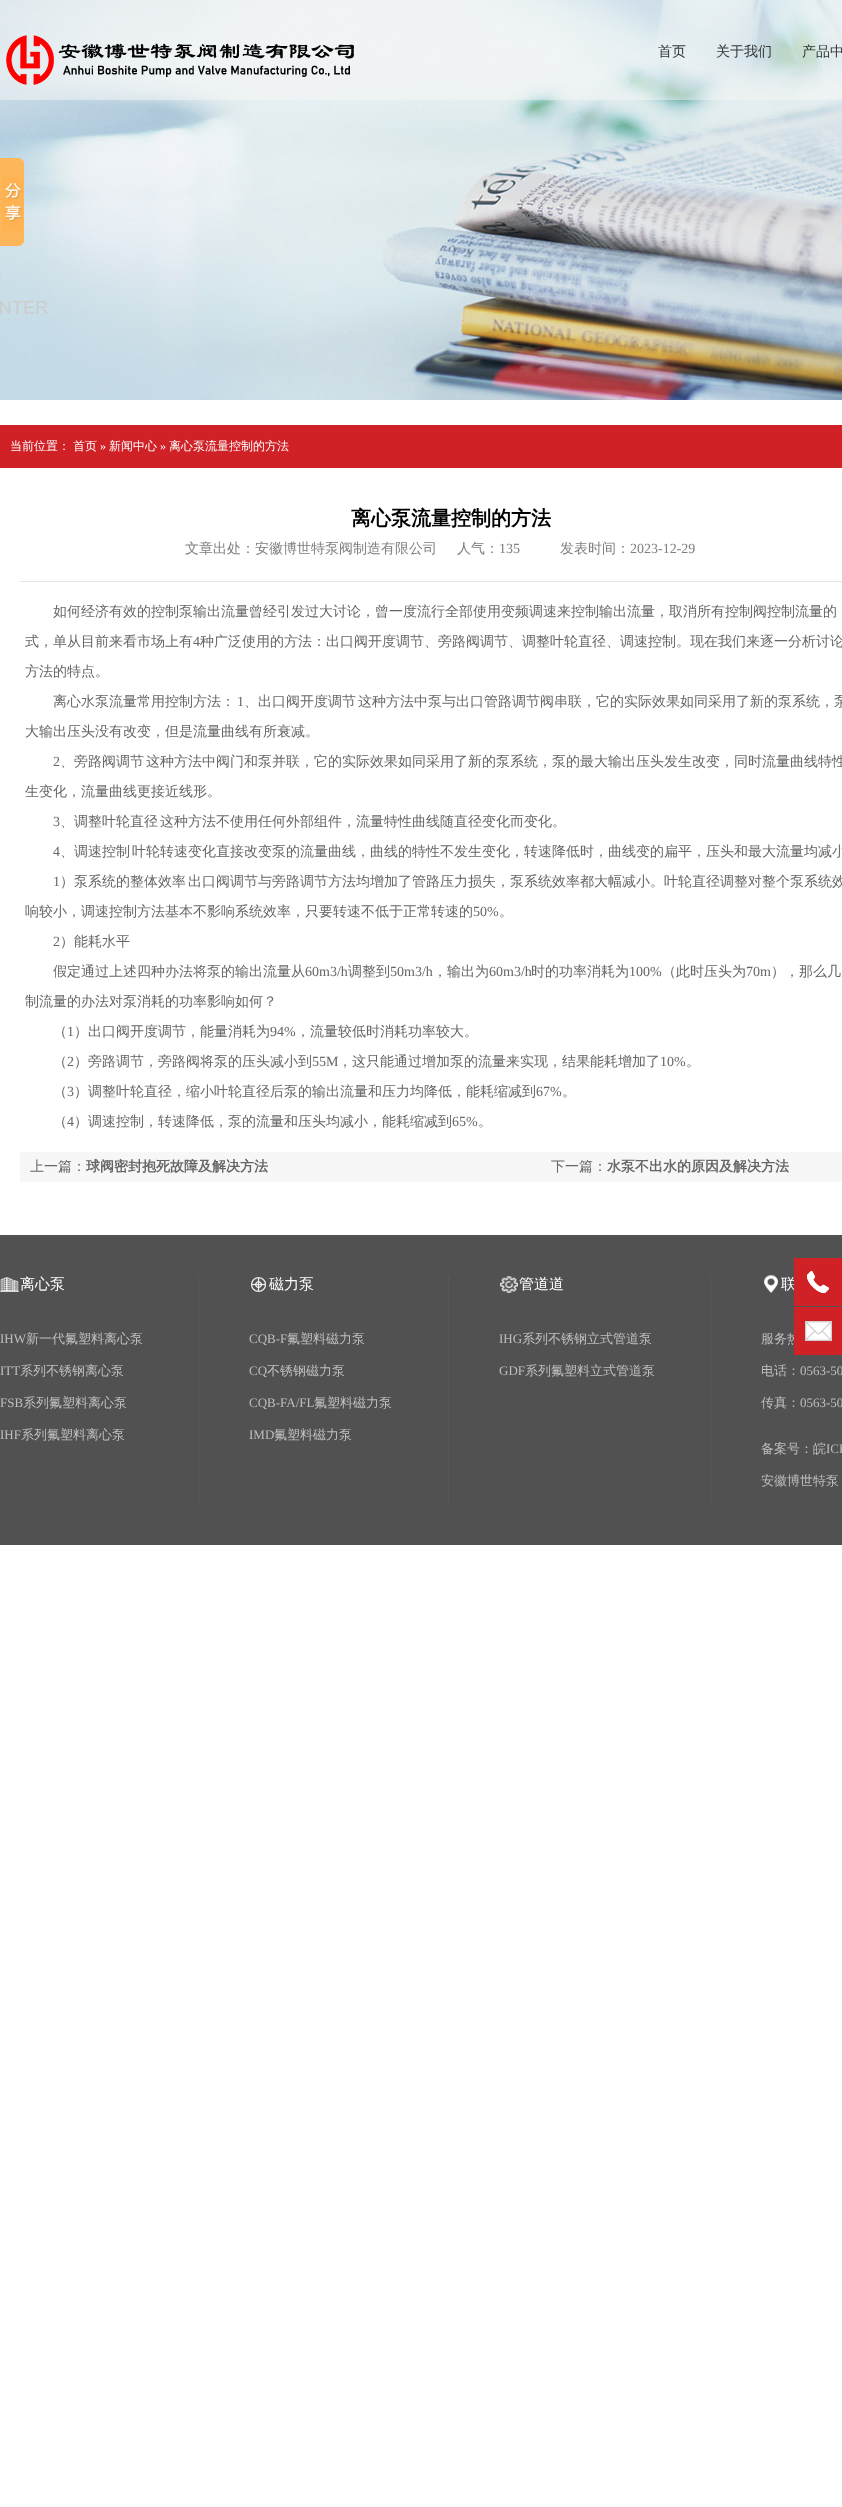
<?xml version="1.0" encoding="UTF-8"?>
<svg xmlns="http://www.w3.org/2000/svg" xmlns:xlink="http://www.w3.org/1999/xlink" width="842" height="2507">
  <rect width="100%" height="100%" fill="#ffffff" />
  <image x="0" y="0" width="842" height="400" xlink:href="image1.png" />
  <rect width="842" height="100" fill="#f5f5f5" fill-opacity="0.5" />
  <image x="6" y="35" width="348" height="50" xlink:href="image2.png" />
  <image x="0" y="158" width="24" height="88" xlink:href="image3.png" />
  <rect y="425" width="842" height="43" fill="#d02127" />
  <rect x="20" y="581" width="822" height="1" fill="#e5e5e5" />
  <rect x="20" y="1152" width="822" height="30" fill="#f7f7f7" />
  <rect y="1235" width="842" height="310" fill="#515151" />
  <rect x="198" y="1275" width="1" height="230" fill="#585858" />
  <image x="0" y="1277" width="19" height="15" xlink:href="image6.png" />
  <rect x="448" y="1275" width="1" height="230" fill="#585858" />
  <image x="251" y="1277" width="15" height="15" xlink:href="image7.png" />
  <rect x="710" y="1275" width="1" height="230" fill="#585858" />
  <image x="500" y="1276" width="18" height="17" xlink:href="image8.png" />
  <image x="764" y="1275" width="14" height="18" xlink:href="image9.png" />
  <text x="658" y="56" style="font-family: WenQuanYi Zen Hei; font-size: 14px; font-weight: 500; fill: #333333">首页</text>
  <text x="716" y="56" style="font-family: WenQuanYi Zen Hei; font-size: 14px; font-weight: 500; fill: #333333">关于我们</text>
  <text x="802" y="56" style="font-family: WenQuanYi Zen Hei; font-size: 14px; font-weight: 500; fill: #333333">产品中</text>
  <text x="10" y="450" style="font-family: WenQuanYi Zen Hei; font-size: 12px; font-weight: 500; fill: #ffffff">当前位置：</text>
  <text x="73" y="450" style="font-family: WenQuanYi Zen Hei; font-size: 12px; font-weight: 500; fill: #ffffff">首页</text>
  <text x="100" y="450" style="font-family: Liberation Serif; font-size: 12px; fill: #ffffff">»</text>
  <text x="109" y="450" style="font-family: WenQuanYi Zen Hei; font-size: 12px; font-weight: 500; fill: #ffffff">新闻中心</text>
  <text x="160" y="450" style="font-family: Liberation Serif; font-size: 12px; fill: #ffffff">»</text>
  <text x="169" y="450" style="font-family: WenQuanYi Zen Hei; font-size: 12px; font-weight: 500; fill: #ffffff">离心泵流量控制的方法</text>
  <text x="351" y="525" style="font-family: WenQuanYi Zen Hei; font-size: 20px; font-weight: bold; fill: #000000">离心泵流量控制的方法</text>
  <text x="185" y="553" style="font-family: WenQuanYi Zen Hei; font-size: 14px; font-weight: 500; fill: #7e7e7e">文章出处：安徽博世特泵阀制造有限公司</text>
  <text x="457" y="553" style="font-family: WenQuanYi Zen Hei; font-size: 14px; font-weight: 500; fill: #7e7e7e">人气：</text>
  <text x="499" y="553" style="font-family: Liberation Serif; font-size: 14px; fill: #7e7e7e">135</text>
  <text x="560" y="553" style="font-family: WenQuanYi Zen Hei; font-size: 14px; font-weight: 500; fill: #7e7e7e">发表时间：</text>
  <text x="630" y="553" style="font-family: Liberation Serif; font-size: 14px; fill: #7e7e7e">2023-12-29</text>
  <text x="53" y="616" style="font-family: WenQuanYi Zen Hei; font-size: 14px; font-weight: 500; fill: #666666">如何经济有效的控制泵输出流量曾经引发过大讨论，曾一度流行全部使用变频调速来控制输出流量，取消所有控制阀控制流量的</text>
  <text x="25" y="646" style="font-family: WenQuanYi Zen Hei; font-size: 14px; font-weight: 500; fill: #666666">式，单从目前来看市场上有</text>
  <text x="193" y="646" style="font-family: Liberation Serif; font-size: 14px; fill: #666666">4</text>
  <text x="200" y="646" style="font-family: WenQuanYi Zen Hei; font-size: 14px; font-weight: 500; fill: #666666">种广泛使用的方法：出口阀开度调节、旁路阀调节、调整叶轮直径、调速控制。现在我们来逐一分析讨论</text>
  <text x="25" y="676" style="font-family: WenQuanYi Zen Hei; font-size: 14px; font-weight: 500; fill: #666666">方法的特点。</text>
  <text x="53" y="706" style="font-family: WenQuanYi Zen Hei; font-size: 14px; font-weight: 500; fill: #666666">离心水泵流量常用控制方法：</text>
  <text x="237" y="706" style="font-family: Liberation Serif; font-size: 14px; fill: #666666">1</text>
  <text x="244" y="706" style="font-family: WenQuanYi Zen Hei; font-size: 14px; font-weight: 500; fill: #666666">、出口阀开度调节</text>
  <text x="358" y="706" style="font-family: WenQuanYi Zen Hei; font-size: 14px; font-weight: 500; fill: #666666">这种方法中泵与出口管路调节阀串联，它的实际效果如同采用了新的泵系统，泵</text>
  <text x="25" y="736" style="font-family: WenQuanYi Zen Hei; font-size: 14px; font-weight: 500; fill: #666666">大输出压头没有改变，但是流量曲线有所衰减。</text>
  <text x="53" y="766" style="font-family: Liberation Serif; font-size: 14px; fill: #666666">2</text>
  <text x="60" y="766" style="font-family: WenQuanYi Zen Hei; font-size: 14px; font-weight: 500; fill: #666666">、旁路阀调节</text>
  <text x="146" y="766" style="font-family: WenQuanYi Zen Hei; font-size: 14px; font-weight: 500; fill: #666666">这种方法中阀门和泵并联，它的实际效果如同采用了新的泵系统，泵的最大输出压头发生改变，同时流量曲线特性</text>
  <text x="25" y="796" style="font-family: WenQuanYi Zen Hei; font-size: 14px; font-weight: 500; fill: #666666">生变化，流量曲线更接近线形。</text>
  <text x="53" y="826" style="font-family: Liberation Serif; font-size: 14px; fill: #666666">3</text>
  <text x="60" y="826" style="font-family: WenQuanYi Zen Hei; font-size: 14px; font-weight: 500; fill: #666666">、调整叶轮直径</text>
  <text x="160" y="826" style="font-family: WenQuanYi Zen Hei; font-size: 14px; font-weight: 500; fill: #666666">这种方法不使用任何外部组件，流量特性曲线随直径变化而变化。</text>
  <text x="53" y="856" style="font-family: Liberation Serif; font-size: 14px; fill: #666666">4</text>
  <text x="60" y="856" style="font-family: WenQuanYi Zen Hei; font-size: 14px; font-weight: 500; fill: #666666">、调速控制</text>
  <text x="132" y="856" style="font-family: WenQuanYi Zen Hei; font-size: 14px; font-weight: 500; fill: #666666">叶轮转速变化直接改变泵的流量曲线，曲线的特性不发生变化，转速降低时，曲线变的扁平，压头和最大流量均减小</text>
  <text x="53" y="886" style="font-family: Liberation Serif; font-size: 14px; fill: #666666">1</text>
  <text x="60" y="886" style="font-family: WenQuanYi Zen Hei; font-size: 14px; font-weight: 500; fill: #666666">）泵系统的整体效率</text>
  <text x="188" y="886" style="font-family: WenQuanYi Zen Hei; font-size: 14px; font-weight: 500; fill: #666666">出口阀调节与旁路调节方法均增加了管路压力损失，泵系统效率都大幅减小。叶轮直径调整对整个泵系统效</text>
  <text x="25" y="916" style="font-family: WenQuanYi Zen Hei; font-size: 14px; font-weight: 500; fill: #666666">响较小，调速控制方法基本不影响系统效率，只要转速不低于正常转速的</text>
  <text x="473" y="916" style="font-family: Liberation Serif; font-size: 14px; fill: #666666">50%</text>
  <text x="499" y="916" style="font-family: WenQuanYi Zen Hei; font-size: 14px; font-weight: 500; fill: #666666">。</text>
  <text x="53" y="946" style="font-family: Liberation Serif; font-size: 14px; fill: #666666">2</text>
  <text x="60" y="946" style="font-family: WenQuanYi Zen Hei; font-size: 14px; font-weight: 500; fill: #666666">）能耗水平</text>
  <text x="53" y="976" style="font-family: WenQuanYi Zen Hei; font-size: 14px; font-weight: 500; fill: #666666">假定通过上述四种办法将泵的输出流量从</text>
  <text x="305" y="976" style="font-family: Liberation Serif; font-size: 14px; fill: #666666">60m3/h</text>
  <text x="348" y="976" style="font-family: WenQuanYi Zen Hei; font-size: 14px; font-weight: 500; fill: #666666">调整到</text>
  <text x="390" y="976" style="font-family: Liberation Serif; font-size: 14px; fill: #666666">50m3/h</text>
  <text x="433" y="976" style="font-family: WenQuanYi Zen Hei; font-size: 14px; font-weight: 500; fill: #666666">，输出为</text>
  <text x="489" y="976" style="font-family: Liberation Serif; font-size: 14px; fill: #666666">60m3/h</text>
  <text x="531" y="976" style="font-family: WenQuanYi Zen Hei; font-size: 14px; font-weight: 500; fill: #666666">时的功率消耗为</text>
  <text x="629" y="976" style="font-family: Liberation Serif; font-size: 14px; fill: #666666">100%</text>
  <text x="662" y="976" style="font-family: WenQuanYi Zen Hei; font-size: 14px; font-weight: 500; fill: #666666">（此时压头为</text>
  <text x="746" y="976" style="font-family: Liberation Serif; font-size: 14px; fill: #666666">70m</text>
  <text x="771" y="976" style="font-family: WenQuanYi Zen Hei; font-size: 14px; font-weight: 500; fill: #666666">），那么几</text>
  <text x="25" y="1006" style="font-family: WenQuanYi Zen Hei; font-size: 14px; font-weight: 500; fill: #666666">制流量的办法对泵消耗的功率影响如何？</text>
  <text x="53" y="1036" style="font-family: WenQuanYi Zen Hei; font-size: 14px; font-weight: 500; fill: #666666">（</text>
  <text x="67" y="1036" style="font-family: Liberation Serif; font-size: 14px; fill: #666666">1</text>
  <text x="74" y="1036" style="font-family: WenQuanYi Zen Hei; font-size: 14px; font-weight: 500; fill: #666666">）出口阀开度调节，能量消耗为</text>
  <text x="270" y="1036" style="font-family: Liberation Serif; font-size: 14px; fill: #666666">94%</text>
  <text x="296" y="1036" style="font-family: WenQuanYi Zen Hei; font-size: 14px; font-weight: 500; fill: #666666">，流量较低时消耗功率较大。</text>
  <text x="53" y="1066" style="font-family: WenQuanYi Zen Hei; font-size: 14px; font-weight: 500; fill: #666666">（</text>
  <text x="67" y="1066" style="font-family: Liberation Serif; font-size: 14px; fill: #666666">2</text>
  <text x="74" y="1066" style="font-family: WenQuanYi Zen Hei; font-size: 14px; font-weight: 500; fill: #666666">）旁路调节，旁路阀将泵的压头减小到</text>
  <text x="312" y="1066" style="font-family: Liberation Serif; font-size: 14px; fill: #666666">55M</text>
  <text x="338" y="1066" style="font-family: WenQuanYi Zen Hei; font-size: 14px; font-weight: 500; fill: #666666">，这只能通过增加泵的流量来实现，结果能耗增加了</text>
  <text x="660" y="1066" style="font-family: Liberation Serif; font-size: 14px; fill: #666666">10%</text>
  <text x="686" y="1066" style="font-family: WenQuanYi Zen Hei; font-size: 14px; font-weight: 500; fill: #666666">。</text>
  <text x="53" y="1096" style="font-family: WenQuanYi Zen Hei; font-size: 14px; font-weight: 500; fill: #666666">（</text>
  <text x="67" y="1096" style="font-family: Liberation Serif; font-size: 14px; fill: #666666">3</text>
  <text x="74" y="1096" style="font-family: WenQuanYi Zen Hei; font-size: 14px; font-weight: 500; fill: #666666">）调整叶轮直径，缩小叶轮直径后泵的输出流量和压力均降低，能耗缩减到</text>
  <text x="536" y="1096" style="font-family: Liberation Serif; font-size: 14px; fill: #666666">67%</text>
  <text x="562" y="1096" style="font-family: WenQuanYi Zen Hei; font-size: 14px; font-weight: 500; fill: #666666">。</text>
  <text x="53" y="1126" style="font-family: WenQuanYi Zen Hei; font-size: 14px; font-weight: 500; fill: #666666">（</text>
  <text x="67" y="1126" style="font-family: Liberation Serif; font-size: 14px; fill: #666666">4</text>
  <text x="74" y="1126" style="font-family: WenQuanYi Zen Hei; font-size: 14px; font-weight: 500; fill: #666666">）调速控制，转速降低，泵的流量和压头均减小，能耗缩减到</text>
  <text x="452" y="1126" style="font-family: Liberation Serif; font-size: 14px; fill: #666666">65%</text>
  <text x="478" y="1126" style="font-family: WenQuanYi Zen Hei; font-size: 14px; font-weight: 500; fill: #666666">。</text>
  <text x="30" y="1171" style="font-family: WenQuanYi Zen Hei; font-size: 14px; font-weight: 500; fill: #666666">上一篇：</text>
  <text x="86" y="1171" style="font-family: WenQuanYi Zen Hei; font-size: 14px; font-weight: bold; fill: #666666">球阀密封抱死故障及解决方法</text>
  <text x="551" y="1171" style="font-family: WenQuanYi Zen Hei; font-size: 14px; font-weight: 500; fill: #666666">下一篇：</text>
  <text x="607" y="1171" style="font-family: WenQuanYi Zen Hei; font-size: 14px; font-weight: bold; fill: #666666">水泵不出水的原因及解决方法</text>
  <text x="20" y="1289" style="font-family: WenQuanYi Zen Hei; font-size: 15px; font-weight: 500; fill: #ffffff">离心泵</text>
  <text x="0" y="1343" style="font-family: Liberation Serif; font-size: 13px; fill: #bfbfbf">IHW</text>
  <text x="26" y="1343" style="font-family: WenQuanYi Zen Hei; font-size: 13px; font-weight: 500; fill: #bfbfbf">新一代氟塑料离心泵</text>
  <text x="0" y="1375" style="font-family: Liberation Serif; font-size: 13px; fill: #bfbfbf">ITT</text>
  <text x="20" y="1375" style="font-family: WenQuanYi Zen Hei; font-size: 13px; font-weight: 500; fill: #bfbfbf">系列不锈钢离心泵</text>
  <text x="0" y="1407" style="font-family: Liberation Serif; font-size: 13px; fill: #bfbfbf">FSB</text>
  <text x="23" y="1407" style="font-family: WenQuanYi Zen Hei; font-size: 13px; font-weight: 500; fill: #bfbfbf">系列氟塑料离心泵</text>
  <text x="0" y="1439" style="font-family: Liberation Serif; font-size: 13px; fill: #bfbfbf">IHF</text>
  <text x="21" y="1439" style="font-family: WenQuanYi Zen Hei; font-size: 13px; font-weight: 500; fill: #bfbfbf">系列氟塑料离心泵</text>
  <text x="269" y="1289" style="font-family: WenQuanYi Zen Hei; font-size: 15px; font-weight: 500; fill: #ffffff">磁力泵</text>
  <text x="249" y="1343" style="font-family: Liberation Serif; font-size: 13px; fill: #bfbfbf">CQB-F</text>
  <text x="287" y="1343" style="font-family: WenQuanYi Zen Hei; font-size: 13px; font-weight: 500; fill: #bfbfbf">氟塑料磁力泵</text>
  <text x="249" y="1375" style="font-family: Liberation Serif; font-size: 13px; fill: #bfbfbf">CQ</text>
  <text x="267" y="1375" style="font-family: WenQuanYi Zen Hei; font-size: 13px; font-weight: 500; fill: #bfbfbf">不锈钢磁力泵</text>
  <text x="249" y="1407" style="font-family: Liberation Serif; font-size: 13px; fill: #bfbfbf">CQB-FA/FL</text>
  <text x="314" y="1407" style="font-family: WenQuanYi Zen Hei; font-size: 13px; font-weight: 500; fill: #bfbfbf">氟塑料磁力泵</text>
  <text x="249" y="1439" style="font-family: Liberation Serif; font-size: 13px; fill: #bfbfbf">IMD</text>
  <text x="274" y="1439" style="font-family: WenQuanYi Zen Hei; font-size: 13px; font-weight: 500; fill: #bfbfbf">氟塑料磁力泵</text>
  <text x="519" y="1289" style="font-family: WenQuanYi Zen Hei; font-size: 15px; font-weight: 500; fill: #ffffff">管道道</text>
  <text x="499" y="1343" style="font-family: Liberation Serif; font-size: 13px; fill: #bfbfbf">IHG</text>
  <text x="522" y="1343" style="font-family: WenQuanYi Zen Hei; font-size: 13px; font-weight: 500; fill: #bfbfbf">系列不锈钢立式管道泵</text>
  <text x="499" y="1375" style="font-family: Liberation Serif; font-size: 13px; fill: #bfbfbf">GDF</text>
  <text x="525" y="1375" style="font-family: WenQuanYi Zen Hei; font-size: 13px; font-weight: 500; fill: #bfbfbf">系列氟塑料立式管道泵</text>
  <text x="781" y="1289" style="font-family: WenQuanYi Zen Hei; font-size: 15px; font-weight: 500; fill: #ffffff">联</text>
  <rect x="794" y="1258" width="48" height="48" fill="#d02127" />
  <image x="807" y="1271" width="22" height="22" xlink:href="image4.png" />
  <text x="761" y="1343" style="font-family: WenQuanYi Zen Hei; font-size: 13px; font-weight: 500; fill: #bfbfbf">服务热</text>
  <rect x="794" y="1307" width="48" height="48" fill="#d02127" />
  <image x="805" y="1321" width="27" height="20" xlink:href="image5.png" />
  <text x="761" y="1375" style="font-family: WenQuanYi Zen Hei; font-size: 13px; font-weight: 500; fill: #bfbfbf">电话：</text>
  <text x="800" y="1375" style="font-family: Liberation Serif; font-size: 13px; fill: #bfbfbf">0563-50</text>
  <text x="761" y="1407" style="font-family: WenQuanYi Zen Hei; font-size: 13px; font-weight: 500; fill: #bfbfbf">传真：</text>
  <text x="800" y="1407" style="font-family: Liberation Serif; font-size: 13px; fill: #bfbfbf">0563-50</text>
  <text x="761" y="1453" style="font-family: WenQuanYi Zen Hei; font-size: 13px; font-weight: 500; fill: #bfbfbf">备案号：皖</text>
  <text x="826" y="1453" style="font-family: Liberation Serif; font-size: 13px; fill: #bfbfbf">ICP</text>
  <text x="761" y="1485" style="font-family: WenQuanYi Zen Hei; font-size: 13px; font-weight: 500; fill: #bfbfbf">安徽博世特泵</text>
</svg>
